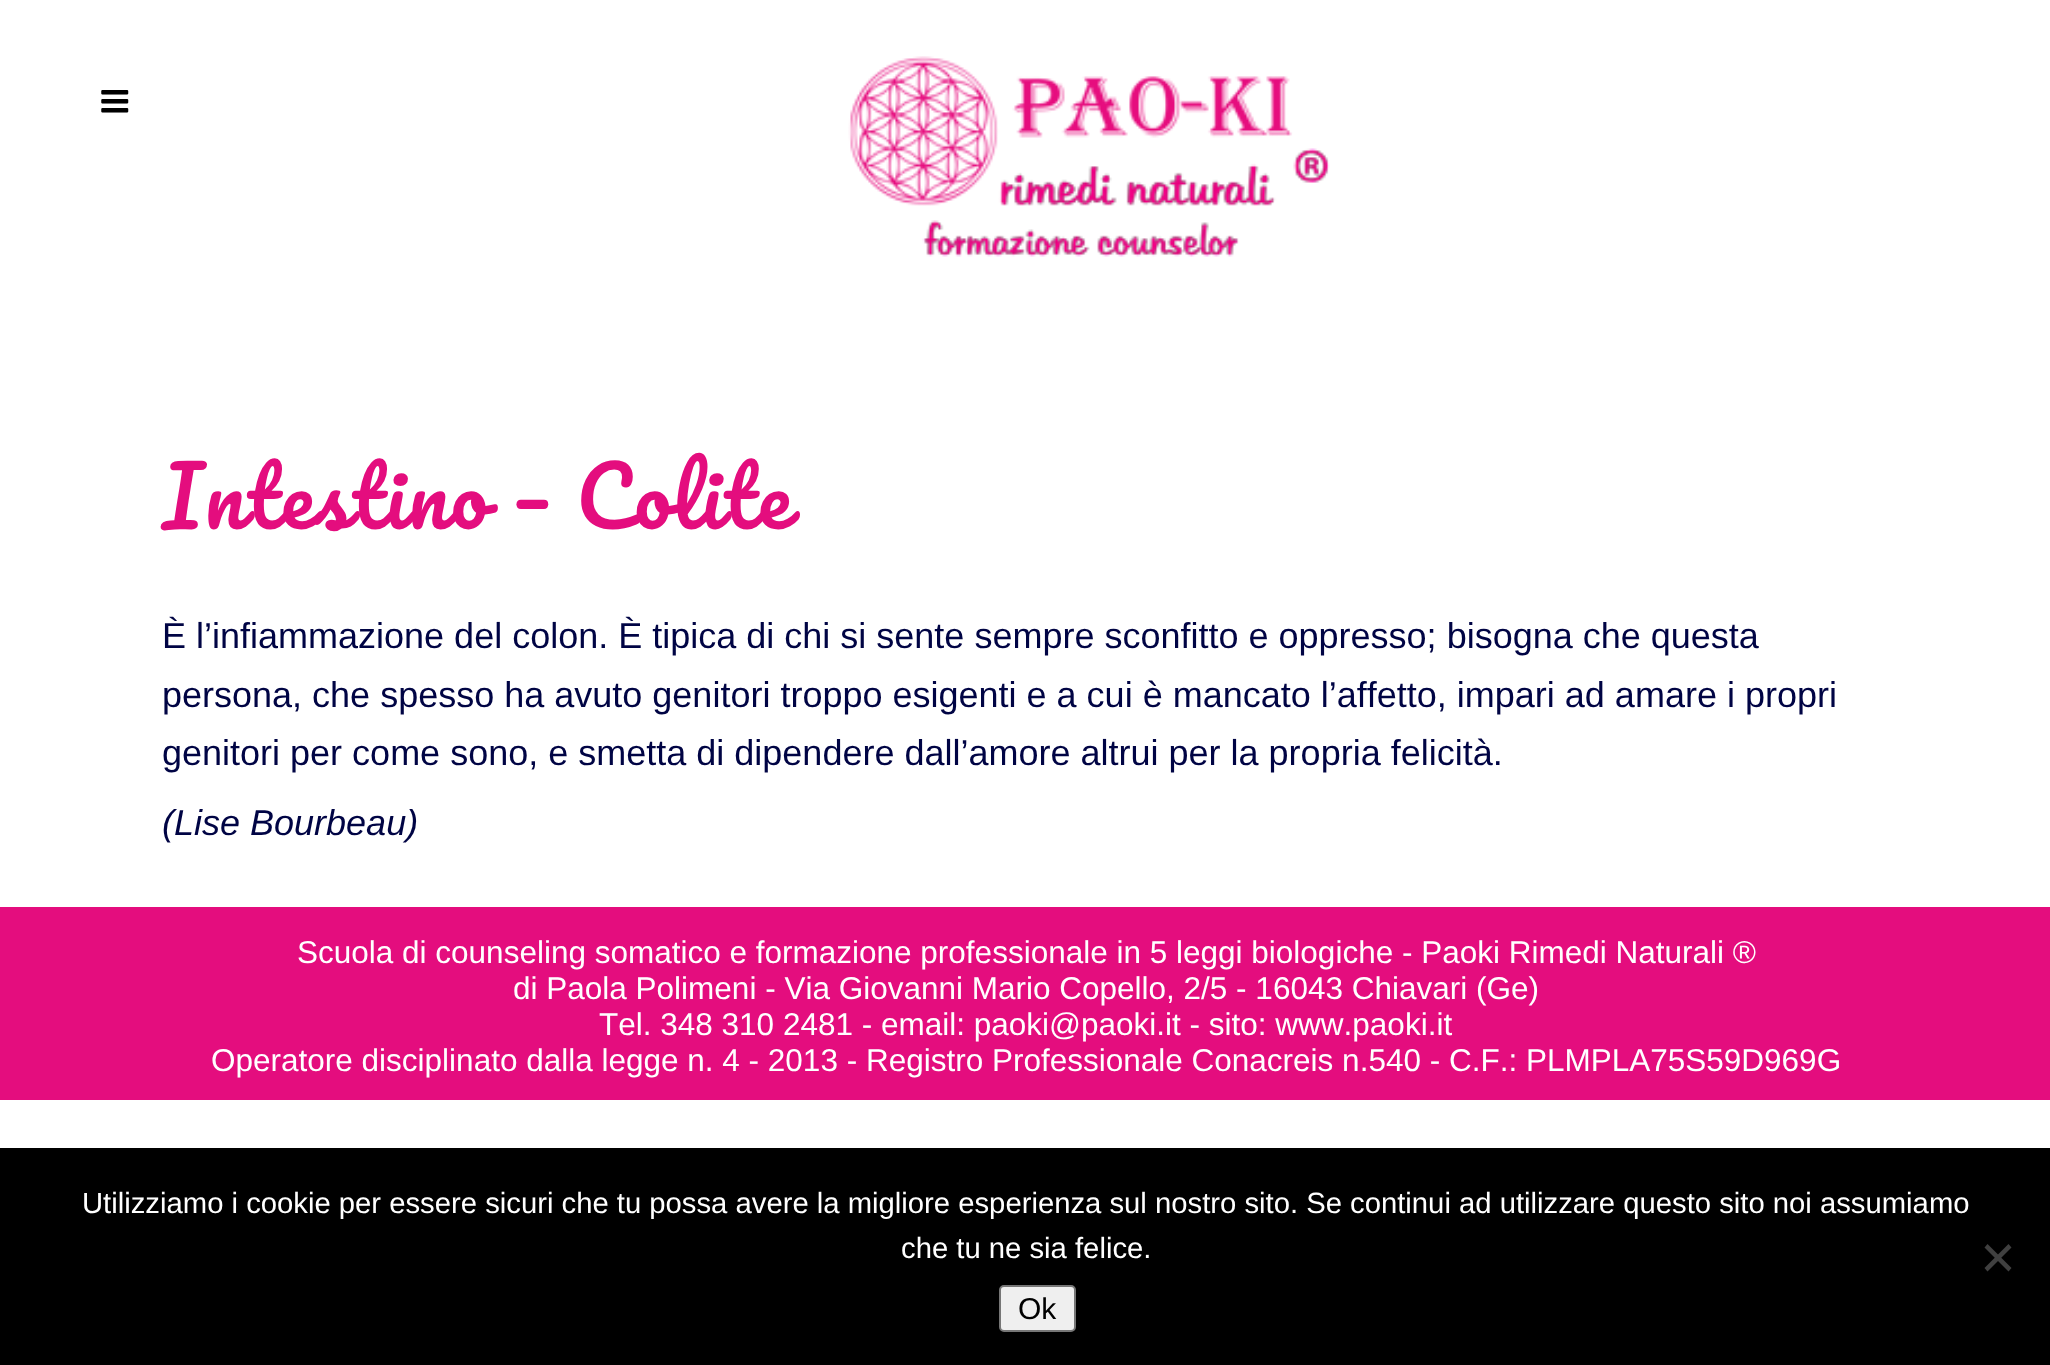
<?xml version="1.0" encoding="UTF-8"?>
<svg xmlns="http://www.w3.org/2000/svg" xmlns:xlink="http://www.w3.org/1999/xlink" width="2050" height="1365">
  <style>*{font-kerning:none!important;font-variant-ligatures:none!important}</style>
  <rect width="100%" height="100%" fill="#ffffff" />
  <image x="101" y="90" width="28" height="23" xlink:href="image1.png" />
  <image x="848" y="56" width="482" height="201" xlink:href="image2.png" />
  <rect y="907" width="2050" height="193" fill="#e40d7e" />
  <rect y="1148" width="2050" height="217" fill="#000000" />
  <path d="M 2008.5 1244 l 3 3.5 l -24 24 l -3 -3.5 z" fill="#404040" />
  <path d="M 1984.5 1247.5 l 3 -3.5 l 24 24 l -3 3.5 z" fill="#404040" />
  <rect x="1000" y="1286" width="75" height="45" rx="4" fill="#efefef" stroke="#767676" stroke-width="2" />
  <text x="162" y="529" word-spacing="-1" style="font-family: Pacifico; font-size: 81px; letter-spacing: 2.25px; fill: #e40d7e">Intestino – Colite</text>
  <text x="162" y="648" style="font-family: Liberation Sans; font-size: 36px; fill: #000444">È l’infiammazione del colon. È tipica di chi si sente sempre sconfitto e oppresso; bisogna che questa</text>
  <text x="162" y="707" style="font-family: Liberation Sans; font-size: 36px; fill: #000444">persona, che spesso ha avuto genitori troppo esigenti e a cui è mancato l’affetto, impari ad amare i propri</text>
  <text x="162" y="765" style="font-family: Liberation Sans; font-size: 36px; fill: #000444">genitori per come sono, e smetta di dipendere dall’amore altrui per la propria felicità.</text>
  <text x="162" y="835" style="font-family: Liberation Sans; font-size: 36px; font-style: italic; fill: #000444">(Lise Bourbeau)</text>
  <text x="297" y="963" style="font-family: Liberation Sans; font-size: 31.5px; fill: #ffffff">Scuola di counseling somatico e formazione professionale in 5 leggi biologiche - Paoki Rimedi Naturali ®</text>
  <text x="513" y="999" style="font-family: Liberation Sans; font-size: 31.5px; fill: #ffffff">di Paola Polimeni - Via Giovanni Mario Copello, 2/5 - 16043 Chiavari (Ge)</text>
  <text x="599" y="1035" style="font-family: Liberation Sans; font-size: 31.5px; fill: #ffffff">Tel. 348 310 2481 - email: paoki@paoki.it - sito: www.paoki.it</text>
  <text x="211" y="1071" style="font-family: Liberation Sans; font-size: 31.5px; fill: #ffffff">Operatore disciplinato dalla legge n. 4 - 2013 - Registro Professionale Conacreis n.540 - C.F.: PLMPLA75S59D969G</text>
  <text x="82" y="1213" style="font-family: Liberation Sans; font-size: 29.25px; fill: #ffffff">Utilizziamo i cookie per essere sicuri che tu possa avere la migliore esperienza sul nostro sito. Se continui ad utilizzare questo sito noi assumiamo</text>
  <text x="901" y="1258" style="font-family: Liberation Sans; font-size: 29.25px; fill: #ffffff">che tu ne sia felice.</text>
  <text x="1018" y="1319" style="font-family: Liberation Sans; font-size: 30px; fill: #000000">Ok</text>
</svg>
